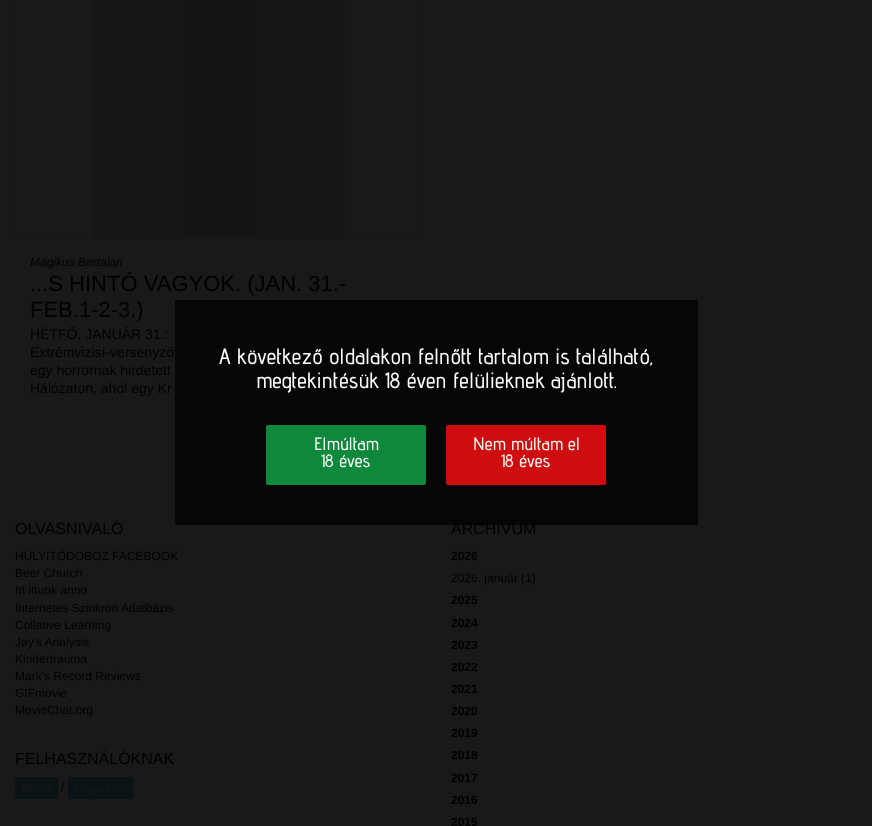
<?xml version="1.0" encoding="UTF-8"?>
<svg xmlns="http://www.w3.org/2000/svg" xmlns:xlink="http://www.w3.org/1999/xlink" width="872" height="826">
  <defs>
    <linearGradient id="g1" gradientUnits="userSpaceOnUse" x1="15" y1="86" x2="421" y2="86"><stop offset="0" stop-color="#181818" /><stop offset="0.5" stop-color="#141414" /><stop offset="1" stop-color="#181818" /></linearGradient>
  </defs>
  <rect width="100%" height="100%" fill="#191919" />
  <rect x="91" width="254" height="238" fill="url(#g1)" />
  <rect x="15.5" y="-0.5" width="405" height="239" fill="none" stroke="#151515" />
  <rect x="15.5" y="777.5" width="42" height="21" rx="2.5" fill="#091316" stroke="#071216" />
  <rect x="68.5" y="777.5" width="64" height="21" rx="2.5" fill="#091316" stroke="#071216" />
  <text x="30" y="266" style="font-family: Liberation Sans; font-size: 12px; font-style: italic; fill: #000000">Mágikus Bertalan</text>
  <text x="30" y="291" style="font-family: Liberation Sans; font-size: 22px; fill: #000000">...S HINTÓ VAGYOK. (JAN. 31.-</text>
  <text x="30" y="317" style="font-family: Liberation Sans; font-size: 22px; fill: #000000">FEB.1-2-3.)</text>
  <text x="30" y="339" style="font-family: Liberation Sans; font-size: 14px; fill: #000000">HÉTFŐ, JANUÁR 31.:</text>
  <text x="30" y="357" style="font-family: Liberation Sans; font-size: 14px; fill: #000000">Extrémvizisí-versenyző</text>
  <text x="30" y="375" style="font-family: Liberation Sans; font-size: 14px; fill: #000000">egy horrornak hirdetett</text>
  <text x="30" y="393" style="font-family: Liberation Sans; font-size: 14px; fill: #000000">Hálózaton, ahol egy Kr</text>
  <text x="15" y="534" style="font-family: Liberation Sans; font-size: 16px; fill: #000000">OLVASNIVALÓ</text>
  <text x="15" y="560" style="font-family: Liberation Sans; font-size: 12px; fill: #000000">HÜLYÍTŐDOBOZ FACEBOOK</text>
  <text x="15" y="577" style="font-family: Liberation Sans; font-size: 12px; fill: #000000">Beer Church</text>
  <text x="15" y="594" style="font-family: Liberation Sans; font-size: 12px; fill: #000000">Itt ittunk anno</text>
  <text x="15" y="612" style="font-family: Liberation Sans; font-size: 12px; fill: #000000">Internetes Szinkron Adatbázis</text>
  <text x="15" y="629" style="font-family: Liberation Sans; font-size: 12px; fill: #000000">Collative Learning</text>
  <text x="15" y="646" style="font-family: Liberation Sans; font-size: 12px; fill: #000000">Jay's Analysis</text>
  <text x="15" y="663" style="font-family: Liberation Sans; font-size: 12px; fill: #000000">Kindertrauma</text>
  <text x="15" y="680" style="font-family: Liberation Sans; font-size: 12px; fill: #000000">Mark's Record Reviews</text>
  <text x="15" y="697" style="font-family: Liberation Sans; font-size: 12px; fill: #000000">GIFmovie</text>
  <text x="15" y="714" style="font-family: Liberation Sans; font-size: 12px; fill: #000000">MovieChat.org</text>
  <text x="15" y="764" style="font-family: Liberation Sans; font-size: 16px; fill: #000000">FELHASZNÁLÓKNAK</text>
  <text x="21" y="792" style="font-family: Liberation Sans; font-size: 12px; fill: #191919">Belép</text>
  <text x="61" y="791" style="font-family: Liberation Sans; font-size: 12px; fill: #000000">/</text>
  <text x="74" y="792" style="font-family: Liberation Sans; font-size: 12px; fill: #191919">Regisztrál</text>
  <text x="451" y="534" style="font-family: Liberation Sans; font-size: 16px; fill: #000000">ARCHÍVUM</text>
  <text x="451" y="560" style="font-family: Liberation Sans; font-size: 12px; font-weight: bold; fill: #000000">2026</text>
  <text x="451" y="582" style="font-family: Liberation Sans; font-size: 12px; fill: #000000">2026. január (1)</text>
  <text x="451" y="604" style="font-family: Liberation Sans; font-size: 12px; font-weight: bold; fill: #000000">2025</text>
  <text x="451" y="627" style="font-family: Liberation Sans; font-size: 12px; font-weight: bold; fill: #000000">2024</text>
  <text x="451" y="649" style="font-family: Liberation Sans; font-size: 12px; font-weight: bold; fill: #000000">2023</text>
  <text x="451" y="671" style="font-family: Liberation Sans; font-size: 12px; font-weight: bold; fill: #000000">2022</text>
  <text x="451" y="693" style="font-family: Liberation Sans; font-size: 12px; font-weight: bold; fill: #000000">2021</text>
  <text x="451" y="715" style="font-family: Liberation Sans; font-size: 12px; font-weight: bold; fill: #000000">2020</text>
  <text x="451" y="737" style="font-family: Liberation Sans; font-size: 12px; font-weight: bold; fill: #000000">2019</text>
  <text x="451" y="759" style="font-family: Liberation Sans; font-size: 12px; font-weight: bold; fill: #000000">2018</text>
  <text x="451" y="782" style="font-family: Liberation Sans; font-size: 12px; font-weight: bold; fill: #000000">2017</text>
  <text x="451" y="804" style="font-family: Liberation Sans; font-size: 12px; font-weight: bold; fill: #000000">2016</text>
  <text x="451" y="826" style="font-family: Liberation Sans; font-size: 12px; font-weight: bold; fill: #000000">2015</text>
  <rect x="175" y="300" width="523" height="225" fill="#000000" fill-opacity="0.76" />
  <text x="219" y="364" style="font-family: Advent Pro; font-size: 22px; font-weight: 500; fill: #ffffff">A következő oldalakon felnőtt tartalom is található,</text>
  <text x="256" y="388" style="font-family: Advent Pro; font-size: 22px; font-weight: 500; fill: #ffffff">megtekintésük 18 éven felülieknek ajánlott.</text>
  <rect x="266" y="425" width="160" height="60" rx="2" fill="#0e883a" />
  <text x="314" y="450" style="font-family: Advent Pro; font-size: 18px; font-weight: 500; fill: #ffffff">Elmúltam</text>
  <text x="321" y="467" style="font-family: Advent Pro; font-size: 18px; font-weight: 500; fill: #ffffff">18 éves</text>
  <rect x="446" y="425" width="160" height="60" rx="2" fill="#d00d0e" />
  <text x="473" y="450" style="font-family: Advent Pro; font-size: 18px; font-weight: 500; fill: #ffffff">Nem múltam el</text>
  <text x="501" y="467" style="font-family: Advent Pro; font-size: 18px; font-weight: 500; fill: #ffffff">18 éves</text>
</svg>
